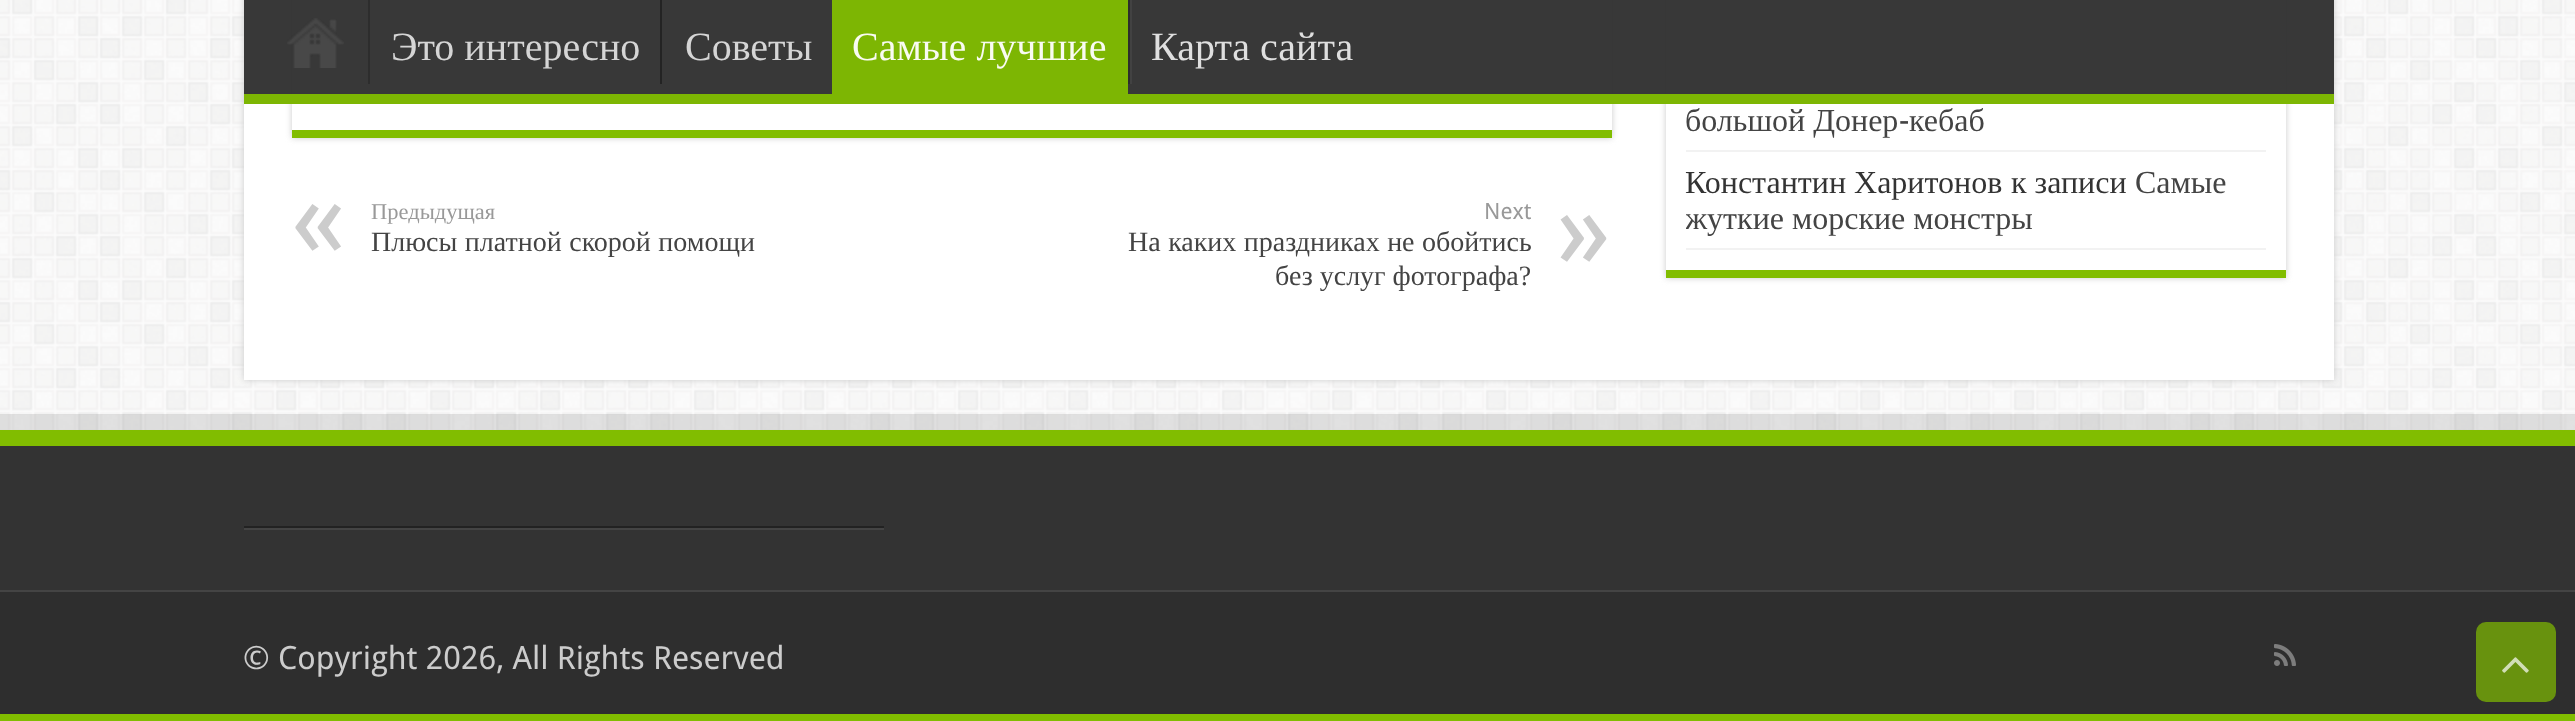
<?xml version="1.0" encoding="UTF-8"?>
<svg xmlns="http://www.w3.org/2000/svg" xmlns:xlink="http://www.w3.org/1999/xlink" width="2575" height="721">
  <defs>
    <clipPath id="clip1"><path d="M 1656 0 h 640 v 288 h -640 z m 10 -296 h 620 v 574 h -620 z" clip-rule="evenodd" /></clipPath>
    <clipPath id="clip2"><path d="M 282 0 h 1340 v 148 h -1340 z m 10 -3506 h 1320 v 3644 h -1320 z" clip-rule="evenodd" /></clipPath>
    <clipPath id="clip3"><rect x="1686" y="152" width="580" height="96" /></clipPath>
  </defs>
  <rect width="100%" height="100%" fill="#ffffff" />
  <image x="0" y="0" width="2575" height="430" xlink:href="image1.png" />
  <rect x="244" y="-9" width="2090" height="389" fill="#cacaca" filter="blur(3px)" />
  <rect x="244" width="2090" height="380" fill="#ffffff" />
  <g clip-path="url(#clip1)">
    <rect x="1666" y="-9" width="620" height="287" fill="#cacaca" filter="blur(3px)" />
  </g>
  <rect x="1686" y="52" width="580" height="2" fill="#f2f2f2" />
  <g clip-path="url(#clip2)">
    <rect x="292" y="-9" width="1320" height="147" fill="#cacaca" filter="blur(3px)" />
  </g>
  <rect x="244" width="2090" height="104" fill="#2d2d2d" fill-opacity="0.95" />
  <rect x="244" y="94" width="2090" height="10" fill="#81bd00" fill-opacity="0.95" />
  <image x="287" y="18" width="57" height="50" xlink:href="image2.png" />
  <rect x="368" width="2" height="84" fill="#2d2d2d" />
  <rect x="660" width="2" height="84" fill="#222222" fill-opacity="0.95" />
  <rect x="832" width="296" height="94" fill="#81bd00" fill-opacity="0.95" />
  <rect x="1128" width="2" height="84" fill="#2d2d2d" />
  <rect x="1130" width="2" height="84" fill="#424242" />
  <rect x="1666" y="270" width="620" height="8" fill="#81bd00" />
  <rect x="1686" y="150" width="580" height="2" fill="#f2f2f2" />
  <rect x="1686" y="248" width="580" height="2" fill="#f2f2f2" />
  <rect x="292" y="130" width="1320" height="8" fill="#81bd00" />
  <rect y="414" width="2575" height="16" fill="#000000" fill-opacity="0.1" />
  <rect y="446" width="2575" height="144" fill="#333333" />
  <rect y="430" width="2575" height="16" fill="#81bd00" />
  <rect x="244" y="526" width="640" height="2" fill="#222222" />
  <rect x="244" y="528" width="640" height="2" fill="#444444" />
  <rect y="592" width="2575" height="122" fill="#2e2e2e" />
  <rect y="590" width="2575" height="2" fill="#444444" />
  <image x="2274" y="644" width="22" height="22" xlink:href="image3.png" />
  <rect x="2476" y="622" width="80" height="80" rx="10" fill="#68920e" />
  <image x="2502" y="657" width="27" height="16" xlink:href="image4.png" />
  <rect y="714" width="2575" height="7" fill="#81bd00" />
  <text x="391" y="60" style="font-family: Liberation Serif; font-size: 40px; fill: #d5d5d5">Это интересно</text>
  <text x="685" y="60" style="font-family: Liberation Serif; font-size: 40px; fill: #d5d5d5">Советы</text>
  <text x="852" y="60" style="font-family: Liberation Serif; font-size: 40px; fill: #f9fbf2">Самые лучшие</text>
  <text x="1151" y="60" style="font-family: Liberation Serif; font-size: 40px; fill: #dfdfdf">Карта сайта</text>
  <text x="1685" y="131" style="font-family: Liberation Serif; font-size: 32px; fill: #444444">большой Донер</text>
  <text x="1899" y="131" style="font-family: Droid Sans; font-size: 32px; fill: #444444">-</text>
  <text x="1909" y="131" style="font-family: Liberation Serif; font-size: 32px; fill: #444444">кебаб</text>
  <text x="1685" y="193" style="font-family: Liberation Serif; font-size: 32px; fill: #333333">Константин Харитонов</text>
  <text x="2011" y="193" style="font-family: Liberation Serif; font-size: 32px; fill: #333333">к записи</text>
  <text x="2135" y="193" style="font-family: Liberation Serif; font-size: 32px; fill: #444444">Самые</text>
  <g clip-path="url(#clip3)">
    <text x="1685" y="229" style="font-family: Liberation Serif; font-size: 32px; fill: #444444">жуткие морские монстры</text>
  </g>
  <text x="291" y="257" style="font-family: Droid Sans; font-size: 112px; fill: #cccccc">«</text>
  <text x="371" y="219" style="font-family: Liberation Serif; font-size: 22.5px; fill: #999999">Предыдущая</text>
  <text x="371" y="251" word-spacing="0.5" style="font-family: Liberation Serif; font-size: 28px; fill: #444444">Плюсы платной скорой помощи</text>
  <text x="1484" y="219" style="font-family: Droid Sans; font-size: 22.5px; fill: #999999">Next</text>
  <text x="1128" y="251" word-spacing="0.5" style="font-family: Liberation Serif; font-size: 28px; fill: #444444">На каких праздниках не обойтись</text>
  <text x="1556" y="268" style="font-family: Droid Sans; font-size: 112px; fill: #cccccc">»</text>
  <text x="1275" y="285" style="font-family: Liberation Serif; font-size: 28px; fill: #444444">без услуг фотографа?</text>
  <text x="243" y="669" style="font-family: Droid Sans; font-size: 32px; fill: #cccccc">© Copyright 2026, All Rights Reserved</text>
</svg>
